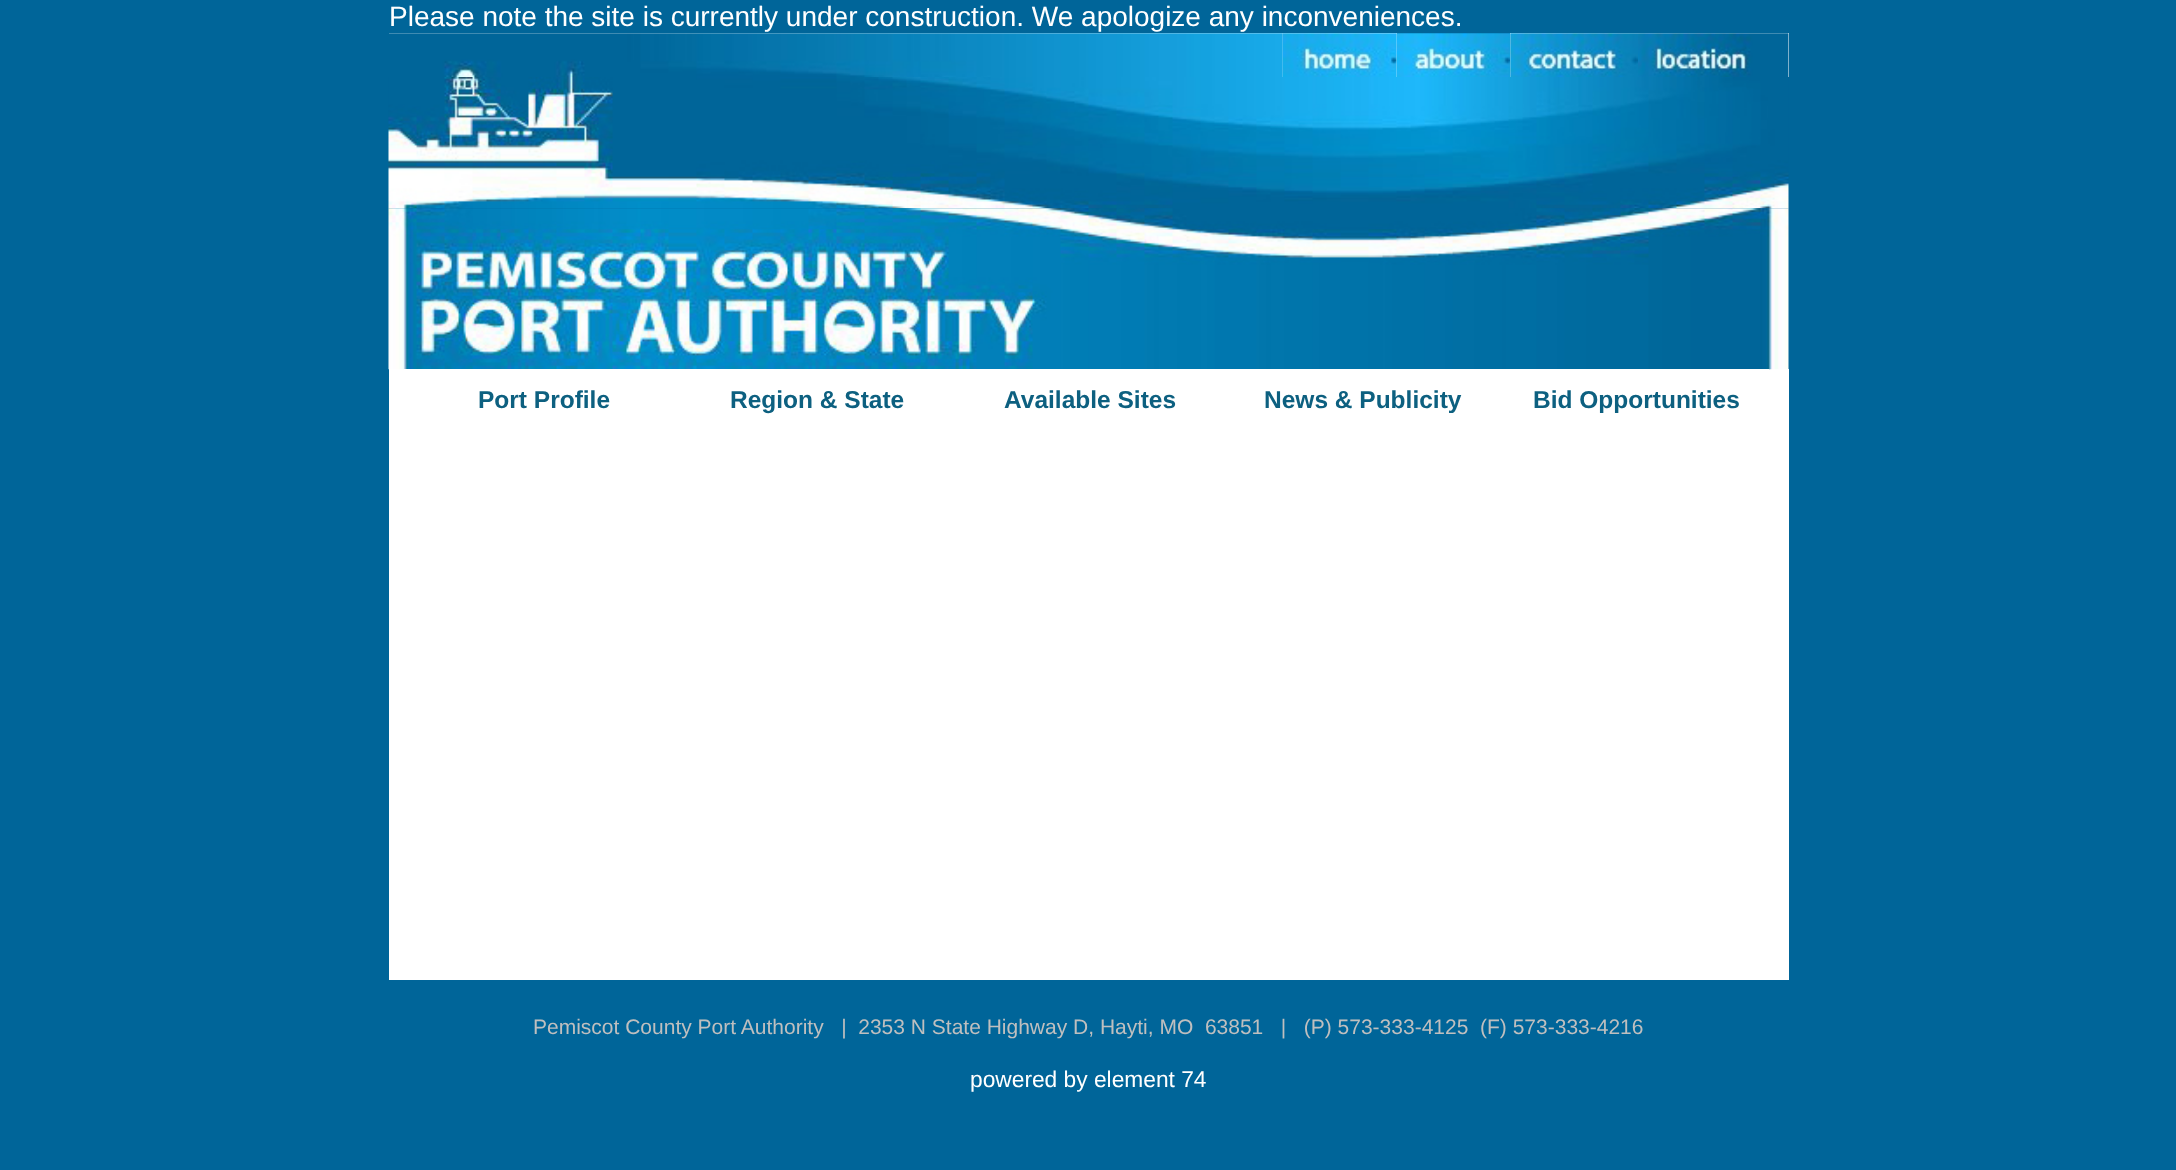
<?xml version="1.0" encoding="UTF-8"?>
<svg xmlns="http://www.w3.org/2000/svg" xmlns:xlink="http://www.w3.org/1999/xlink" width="2176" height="1170">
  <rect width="100%" height="100%" fill="#006599" />
  <rect x="389" y="33" width="1008" height="44" fill="#ffffff" />
  <image x="389" y="33" width="894" height="44" xlink:href="image1.png" />
  <image x="1282" y="33" width="115" height="44" xlink:href="image2.png" />
  <image x="1396" y="33" width="114" height="44" xlink:href="image3.png" />
  <rect x="1510" y="33" width="279" height="44" fill="#ffffff" />
  <image x="1510" y="33" width="128" height="44" xlink:href="image4.png" />
  <image x="1638" y="33" width="151" height="44" xlink:href="image5.png" />
  <image x="388" y="77" width="1401" height="132" xlink:href="image6.png" />
  <rect x="389" y="369" width="1400" height="611" fill="#ffffff" />
  <image x="388" y="208" width="1401" height="162" xlink:href="image7.png" />
  <rect x="404" y="369" width="1365" height="1" fill="#ffffff" />
  <text x="389" y="26" style="font-family: Liberation Sans; font-size: 28px; fill: #ffffff">Please note the site is currently under construction. We apologize any inconveniences.</text>
  <text x="478" y="408" style="font-family: Liberation Sans; font-size: 24.5px; font-weight: bold; fill: #0d6080">Port Profile</text>
  <text x="730" y="408" style="font-family: Liberation Sans; font-size: 24.5px; font-weight: bold; fill: #0d6080">Region &amp; State</text>
  <text x="1004" y="408" style="font-family: Liberation Sans; font-size: 24.5px; font-weight: bold; fill: #0d6080">Available Sites</text>
  <text x="1264" y="408" style="font-family: Liberation Sans; font-size: 24.5px; font-weight: bold; fill: #0d6080">News &amp; Publicity</text>
  <text x="1533" y="408" style="font-family: Liberation Sans; font-size: 24.5px; font-weight: bold; fill: #0d6080">Bid Opportunities</text>
  <text x="533" y="1034" style="font-family: Liberation Sans; font-size: 21px; fill: #bfbfbf" xml:space="preserve">Pemiscot County Port Authority   |  2353 N State Highway D, Hayti, MO  63851   |   (P) 573-333-4125  (F) 573-333-4216</text>
  <text x="970" y="1087" style="font-family: Liberation Sans; font-size: 22.75px; fill: #ffffff">powered by element 74</text>
</svg>
